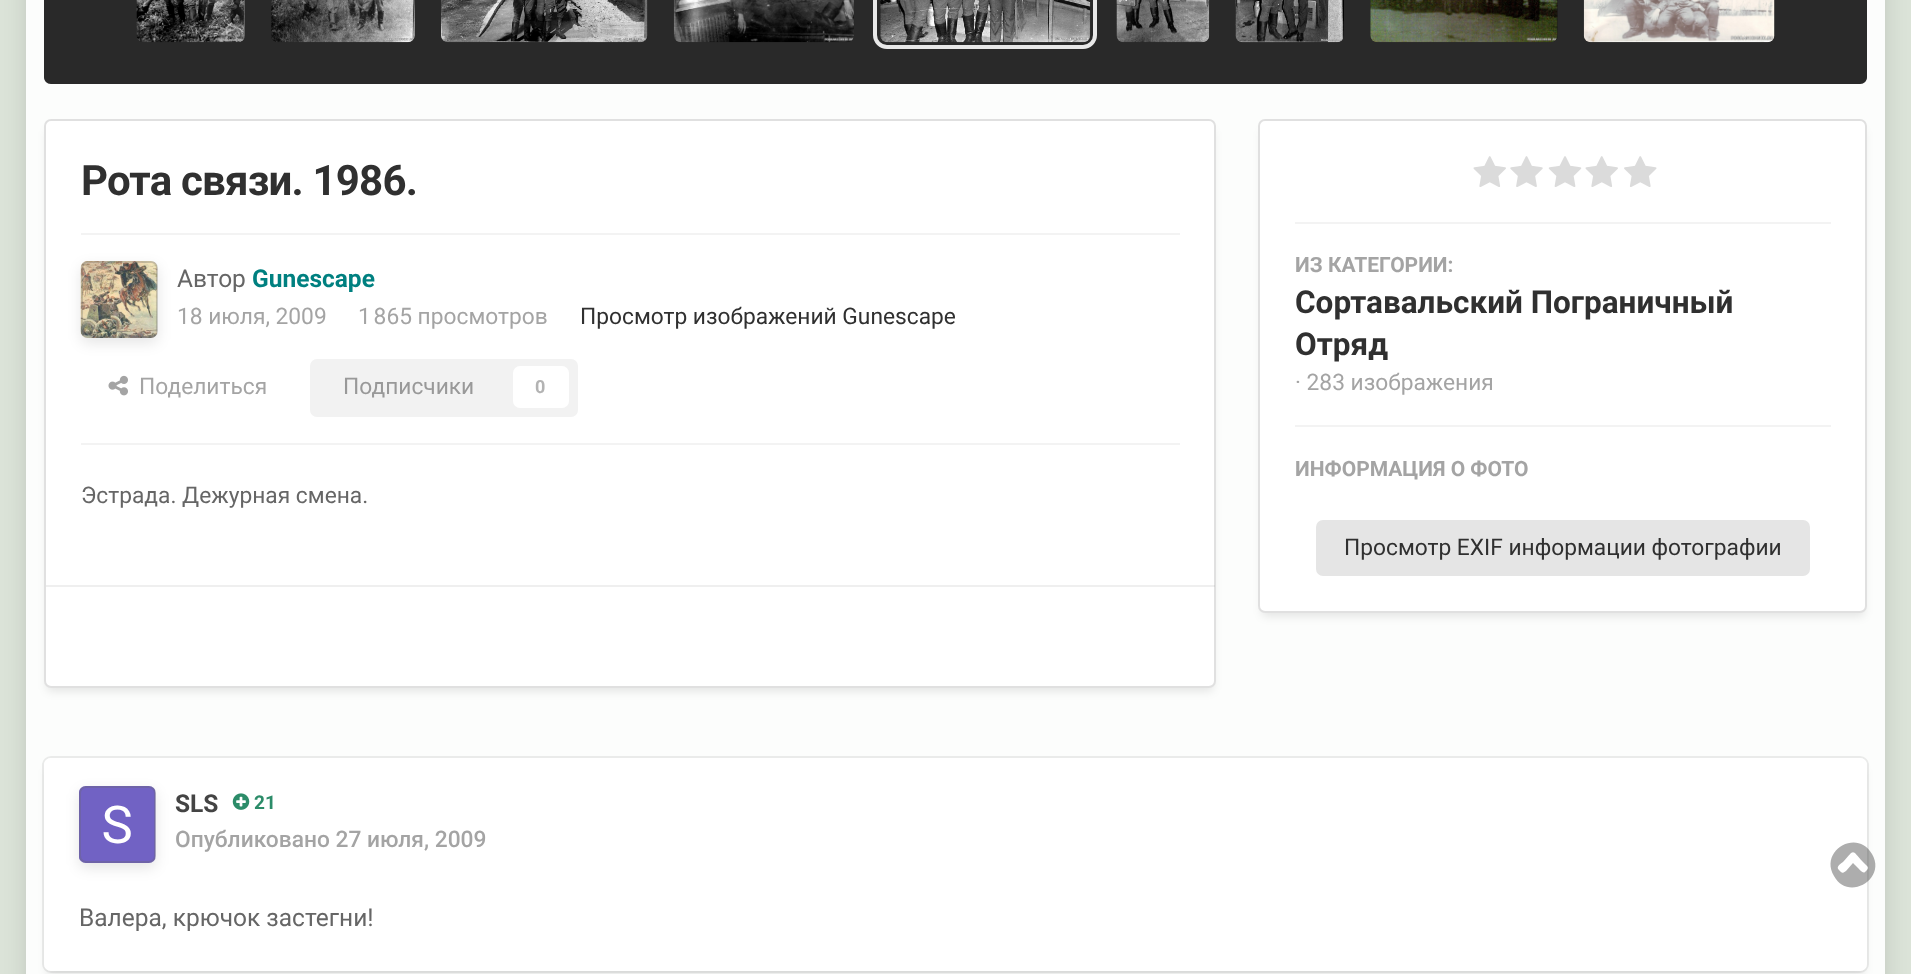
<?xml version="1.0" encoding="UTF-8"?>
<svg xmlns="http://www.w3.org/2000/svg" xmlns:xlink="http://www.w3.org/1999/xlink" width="1911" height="974">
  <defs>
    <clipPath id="clip1"><path d="M 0 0 h 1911 v 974 h -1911 z m 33 -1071 h 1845 c 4 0 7 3 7 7 v 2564 c 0 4 -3 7 -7 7 h -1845 c -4 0 -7 -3 -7 -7 v -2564 c 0 -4 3 -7 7 -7 z" clip-rule="evenodd" /></clipPath>
    <clipPath id="clip2"><path d="M 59 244 h 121 v 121 h -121 z m 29 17 h 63 c 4 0 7 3 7 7 v 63 c 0 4 -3 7 -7 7 h -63 c -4 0 -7 -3 -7 -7 v -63 c 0 -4 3 -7 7 -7 z" clip-rule="evenodd" /></clipPath>
    <clipPath id="clip3"><path d="M 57 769 h 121 v 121 h -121 z m 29 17 h 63 c 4 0 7 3 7 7 v 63 c 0 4 -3 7 -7 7 h -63 c -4 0 -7 -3 -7 -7 v -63 c 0 -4 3 -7 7 -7 z" clip-rule="evenodd" /></clipPath>
  </defs>
  <rect width="100%" height="100%" fill="#dbe3d8" />
  <g clip-path="url(#clip1)">
    <rect x="33" y="-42" width="1845" height="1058" fill="#000000" fill-opacity="0.2" filter="blur(14px)" />
  </g>
  <rect x="26" width="1859" height="974" fill="#ffffff" fill-opacity="0.92" />
  <path d="M 44 -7 h 1823 v 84 c 0 4 -3 7 -7 7 h -1809 c -4 0 -7 -3 -7 -7 z" fill="#3b3b3b" />
  <path d="M 44 -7 h 1823 v 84 c 0 4 -3 7 -7 7 h -1809 c -4 0 -7 -3 -7 -7 z" fill="#000000" fill-opacity="0.3" />
  <image x="136" y="0" width="109" height="43" xlink:href="image1.png" />
  <rect x="271" y="-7" width="144" height="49" rx="7" fill="#141414" />
  <rect x="271" y="-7" width="144" height="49" rx="7" fill="#3b3b3b" fill-opacity="0.3" />
  <image x="271" y="0" width="144" height="43" xlink:href="image2.png" />
  <rect x="441" y="-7" width="207" height="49" rx="7" fill="#141414" />
  <rect x="441" y="-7" width="207" height="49" rx="7" fill="#3b3b3b" fill-opacity="0.3" />
  <image x="441" y="0" width="207" height="43" xlink:href="image3.png" />
  <image x="673" y="0" width="181" height="43" xlink:href="image4.png" />
  <rect x="880" y="-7" width="210" height="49" rx="7" fill="#141414" />
  <rect x="880" y="-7" width="210" height="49" rx="7" fill="#3b3b3b" fill-opacity="0.3" />
  <rect x="875" y="-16" width="220" height="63" rx="12" fill="none" stroke="#e8e8e8" stroke-width="4" />
  <image x="880" y="0" width="211" height="43" xlink:href="image5.png" />
  <image x="1116" y="0" width="94" height="43" xlink:href="image6.png" />
  <image x="1235" y="0" width="109" height="43" xlink:href="image7.png" />
  <rect x="1370" y="-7" width="188" height="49" rx="7" fill="#141414" />
  <rect x="1370" y="-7" width="188" height="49" rx="7" fill="#3b3b3b" fill-opacity="0.3" />
  <image x="1370" y="0" width="188" height="43" xlink:href="image8.png" />
  <rect x="1584" y="-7" width="191" height="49" rx="7" fill="#141414" />
  <rect x="1584" y="-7" width="191" height="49" rx="7" fill="#3b3b3b" fill-opacity="0.3" />
  <image x="1583" y="0" width="192" height="43" xlink:href="image9.png" />
  <rect x="47" y="130" width="1166" height="561" rx="4" fill="#000000" fill-opacity="0.1" filter="blur(5px)" />
  <rect x="44" y="119" width="1172" height="569" rx="7" fill="#ffffff" />
  <rect x="45" y="120" width="1170" height="567" rx="6" fill="none" stroke="#666666" stroke-opacity="0.2" stroke-width="2" />
  <rect x="81" y="233" width="1099" height="2" fill="#f3f3f3" />
  <image x="80" y="261" width="78" height="77" xlink:href="image10.png" />
  <g clip-path="url(#clip2)">
    <rect x="81" y="266" width="77" height="77" rx="7" fill="#000000" fill-opacity="0.1" filter="blur(7px)" />
  </g>
  <rect x="82" y="262" width="75" height="75" rx="6" fill="none" stroke="#666666" stroke-opacity="0.3" stroke-width="2" />
  <image x="108" y="375" width="20" height="21" xlink:href="image11.png" />
  <rect x="310" y="359" width="268" height="58" rx="7" fill="#f2f2f2" />
  <rect x="513" y="366" width="56" height="42" rx="7" fill="#ffffff" />
  <rect x="81" y="443" width="1099" height="2" fill="#f3f3f3" />
  <rect x="46" y="585" width="1169" height="2" fill="#666666" fill-opacity="0.1" />
  <rect x="1262" y="130" width="602" height="486" rx="4" fill="#000000" fill-opacity="0.1" filter="blur(5px)" />
  <rect x="1258" y="119" width="609" height="494" rx="7" fill="#ffffff" />
  <rect x="1259" y="120" width="607" height="492" rx="6" fill="none" stroke="#666666" stroke-opacity="0.2" stroke-width="2" />
  <image x="1473" y="156" width="33" height="31" xlink:href="image12.png" />
  <image x="1510" y="156" width="33" height="31" xlink:href="image13.png" />
  <image x="1548" y="156" width="34" height="31" xlink:href="image14.png" />
  <image x="1585" y="156" width="33" height="31" xlink:href="image12.png" />
  <image x="1624" y="156" width="33" height="31" xlink:href="image15.png" />
  <rect x="1295" y="222" width="536" height="2" fill="#f3f3f3" />
  <rect x="1295" y="425" width="536" height="2" fill="#f3f3f3" />
  <rect x="1316" y="520" width="494" height="56" rx="7" fill="#e5e5e5" />
  <rect x="47" y="768" width="1817" height="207" rx="4" fill="#000000" fill-opacity="0.1" filter="blur(5px)" />
  <rect x="43" y="757" width="1825" height="215" rx="8" fill="none" stroke="#a4a4a4" stroke-opacity="0.2" stroke-width="2" />
  <rect x="44" y="758" width="1823" height="213" rx="7" fill="#ffffff" />
  <image x="79" y="786" width="77" height="77" xlink:href="image16.png" />
  <g clip-path="url(#clip3)">
    <rect x="79" y="791" width="77" height="77" rx="7" fill="#000000" fill-opacity="0.1" filter="blur(7px)" />
  </g>
  <rect x="80" y="787" width="75" height="75" rx="6" fill="none" stroke="#666666" stroke-opacity="0.3" stroke-width="2" />
  <image x="232" y="793" width="18" height="17" xlink:href="image17.png" />
  <path d="M 1865 872 c 5 -5 4 -4 -2 -10 c -12 -13 -8 -13 -20 0 c -4 3 -7 5 -4 8 c 3 3 3 4 7 1 l 7 -8 l 6 6 c 1 1 4 5 6 3 z m 7 -18 c 15 25 -24 48 -38 22 c -15 -25 23 -48 38 -22 z" fill="#313131" fill-opacity="0.4" />
  <text x="81" y="195" style="font-family: Roboto; font-size: 42px; font-weight: bold; letter-spacing: -0.8px; fill: #303030">Рота связи. 1986.</text>
  <text x="177" y="287" style="font-family: Roboto; font-size: 24.5px; fill: #666666">Автор</text>
  <text x="252" y="287" style="font-family: Roboto; font-size: 24.5px; font-weight: bold; fill: #008080">Gunescape</text>
  <text x="177" y="324" style="font-family: Roboto; font-size: 22.75px; fill: #a4a4a4">18 июля, 2009</text>
  <text x="358" y="324" style="font-family: Roboto; font-size: 22.75px; fill: #a4a4a4">1 865 просмотров</text>
  <text x="580" y="324" style="font-family: Roboto; font-size: 22.75px; fill: #303030">Просмотр изображений Gunescape</text>
  <text x="139" y="394" style="font-family: Roboto; font-size: 22.75px; fill: #a4a4a4">Поделиться</text>
  <text x="343" y="394" style="font-family: Roboto; font-size: 22.75px; fill: #999999">Подписчики</text>
  <text x="535" y="393" style="font-family: Roboto; font-size: 18px; font-weight: bold; fill: #b3b3b3">0</text>
  <text x="81" y="503" style="font-family: Roboto; font-size: 22.75px; fill: #666666">Эстрада. Дежурная смена.</text>
  <text x="1295" y="272" style="font-family: Roboto; font-size: 21px; font-weight: bold; fill: #a4a4a4">ИЗ КАТЕГОРИИ:</text>
  <text x="1295" y="313" style="font-family: Roboto; font-size: 31.5px; font-weight: bold; fill: #303030">Сортавальский Пограничный</text>
  <text x="1295" y="355" style="font-family: Roboto; font-size: 31.5px; font-weight: bold; fill: #303030">Отряд</text>
  <text x="1295" y="390" style="font-family: Roboto; font-size: 22.75px; fill: #a4a4a4">· 283 изображения</text>
  <text x="1295" y="476" style="font-family: Roboto; font-size: 21px; font-weight: bold; fill: #a4a4a4">ИНФОРМАЦИЯ О ФОТО</text>
  <text x="1344" y="555" style="font-family: Roboto; font-size: 22.75px; fill: #303030">Просмотр EXIF информации фотографии</text>
  <text x="175" y="812" style="font-family: Roboto; font-size: 24.5px; font-weight: bold; fill: #444444">SLS</text>
  <text x="254" y="809" style="font-family: Roboto; font-size: 19px; font-weight: bold; fill: #2c8c69">21</text>
  <text x="175" y="847" style="font-family: Roboto; font-size: 22.75px; font-weight: 500; fill: #a4a4a4">Опубликовано 27 июля, 2009</text>
  <text x="79" y="926" style="font-family: Roboto; font-size: 24.5px; fill: #666666">Валера, крючок застегни!</text>
</svg>
